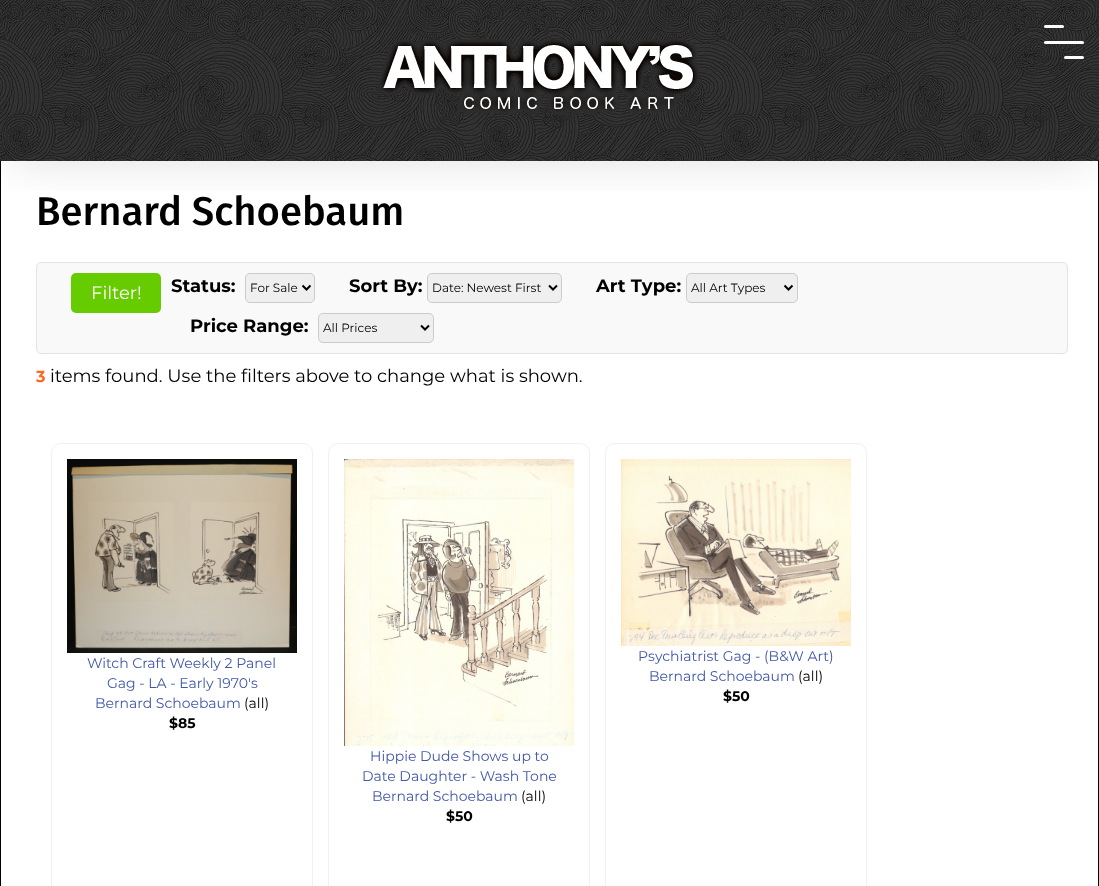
<?xml version="1.0" encoding="UTF-8"?>
<svg xmlns="http://www.w3.org/2000/svg" xmlns:xlink="http://www.w3.org/1999/xlink" width="1099" height="886">
  <defs>
    <clipPath id="clip1"><rect x="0" y="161" width="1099" height="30" /></clipPath>
  </defs>
  <rect width="100%" height="100%" fill="#ffffff" />
  <image x="0" y="0" width="1099" height="161" xlink:href="image1.png" />
  <rect x="1098" y="161" width="1" height="725" fill="#000000" />
  <rect y="161" width="1" height="725" fill="#000000" />
  <g clip-path="url(#clip1)">
    <rect x="5" y="116" width="1089" height="50" rx="25" fill="#000000" fill-opacity="0.1" filter="blur(20px)" />
  </g>
  <image x="374" y="38" width="326" height="78" xlink:href="image2.png" />
  <rect x="1044" y="25" width="20" height="3" rx="1.5" fill="#ffffff" />
  <rect x="1044" y="41" width="40" height="3" rx="1.5" fill="#ffffff" />
  <rect x="1064" y="56" width="20" height="3" rx="1.5" fill="#ffffff" />
  <rect x="36.5" y="262.5" width="1031" height="91" rx="4.5" fill="#f9f9f9" stroke="#e4e4e4" />
  <rect x="71" y="273" width="90" height="40" rx="5" fill="#66cc00" />
  <rect x="245.5" y="273.5" width="69" height="29" rx="4.5" fill="#efefef" stroke="#cccccc" />
  <path d="M 302.5 285.5 l 4 4 l 4 -4" fill="none" stroke="#000000" stroke-width="2" />
  <rect x="427.5" y="273.5" width="134" height="29" rx="4.5" fill="#efefef" stroke="#cccccc" />
  <path d="M 549 285.5 l 4 4 l 4 -4" fill="none" stroke="#000000" stroke-width="2" />
  <rect x="686.5" y="273.5" width="111" height="29" rx="4.5" fill="#efefef" stroke="#cccccc" />
  <path d="M 784.5 285.5 l 4 4 l 4 -4" fill="none" stroke="#000000" stroke-width="2" />
  <rect x="318.5" y="313.5" width="115" height="29" rx="4.5" fill="#efefef" stroke="#cccccc" />
  <path d="M 421 325.5 l 4 4 l 4 -4" fill="none" stroke="#000000" stroke-width="2" />
  <rect x="51.5" y="443.5" width="261" height="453" rx="9.5" fill="none" stroke="#f0f0f0" />
  <image x="67" y="459" width="230" height="194" xlink:href="image3.png" />
  <rect x="605.5" y="443.5" width="261" height="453" rx="9.5" fill="none" stroke="#f0f0f0" />
  <image x="621" y="459" width="230" height="187" xlink:href="image4.png" />
  <rect x="328.5" y="443.5" width="261" height="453" rx="9.5" fill="none" stroke="#f0f0f0" />
  <image x="344" y="459" width="230" height="287" xlink:href="image5.png" />
  <text x="36" y="225" style="font-family: Fira Sans; font-size: 40px; font-weight: 500; fill: #000000">Bernard Schoebaum</text>
  <text x="91" y="299" style="font-family: Montserrat; font-size: 18px; fill: #ffffff">Filter!</text>
  <text x="171" y="292" style="font-family: Montserrat; font-size: 18px; font-weight: bold; fill: #000000">Status:</text>
  <text x="250" y="292" style="font-family: Montserrat; font-size: 12px; fill: #000000">For Sale</text>
  <text x="349" y="292" style="font-family: Montserrat; font-size: 18px; font-weight: bold; fill: #000000">Sort By:</text>
  <text x="432" y="292" style="font-family: Montserrat; font-size: 12px; fill: #000000">Date: Newest First</text>
  <text x="596" y="292" style="font-family: Montserrat; font-size: 18px; font-weight: bold; fill: #000000">Art Type:</text>
  <text x="691" y="292" style="font-family: Montserrat; font-size: 12px; fill: #000000">All Art Types</text>
  <text x="190" y="332" style="font-family: Montserrat; font-size: 18px; font-weight: bold; fill: #000000">Price Range:</text>
  <text x="323" y="332" style="font-family: Montserrat; font-size: 12px; fill: #000000">All Prices</text>
  <text x="36" y="382" style="font-family: Montserrat; font-size: 16px; font-weight: bold; fill: #fe6a23">3</text>
  <text x="50" y="382" style="font-family: Montserrat; font-size: 18px; fill: #000000">items found. Use the filters above to change what is shown.</text>
  <text x="87" y="668" style="font-family: Montserrat; font-size: 14px; fill: #4157a7">Witch Craft Weekly 2 Panel</text>
  <text x="107" y="688" style="font-family: Montserrat; font-size: 14px; fill: #4157a7">Gag - LA - Early 1970's</text>
  <text x="95" y="708" style="font-family: Montserrat; font-size: 14px; fill: #4157a7">Bernard Schoebaum</text>
  <text x="244" y="708" style="font-family: Montserrat; font-size: 14px; fill: #000000">(all)</text>
  <text x="169" y="728" style="font-family: Montserrat; font-size: 14px; font-weight: bold; fill: #000000">$85</text>
  <text x="638" y="661" style="font-family: Montserrat; font-size: 14px; fill: #4157a7">Psychiatrist Gag - (B&amp;W Art)</text>
  <text x="649" y="681" style="font-family: Montserrat; font-size: 14px; fill: #4157a7">Bernard Schoebaum</text>
  <text x="798" y="681" style="font-family: Montserrat; font-size: 14px; fill: #000000">(all)</text>
  <text x="723" y="701" style="font-family: Montserrat; font-size: 14px; font-weight: bold; fill: #000000">$50</text>
  <text x="370" y="761" style="font-family: Montserrat; font-size: 14px; fill: #4157a7">Hippie Dude Shows up to</text>
  <text x="362" y="781" style="font-family: Montserrat; font-size: 14px; fill: #4157a7">Date Daughter - Wash Tone</text>
  <text x="372" y="801" style="font-family: Montserrat; font-size: 14px; fill: #4157a7">Bernard Schoebaum</text>
  <text x="521" y="801" style="font-family: Montserrat; font-size: 14px; fill: #000000">(all)</text>
  <text x="446" y="821" style="font-family: Montserrat; font-size: 14px; font-weight: bold; fill: #000000">$50</text>
</svg>
